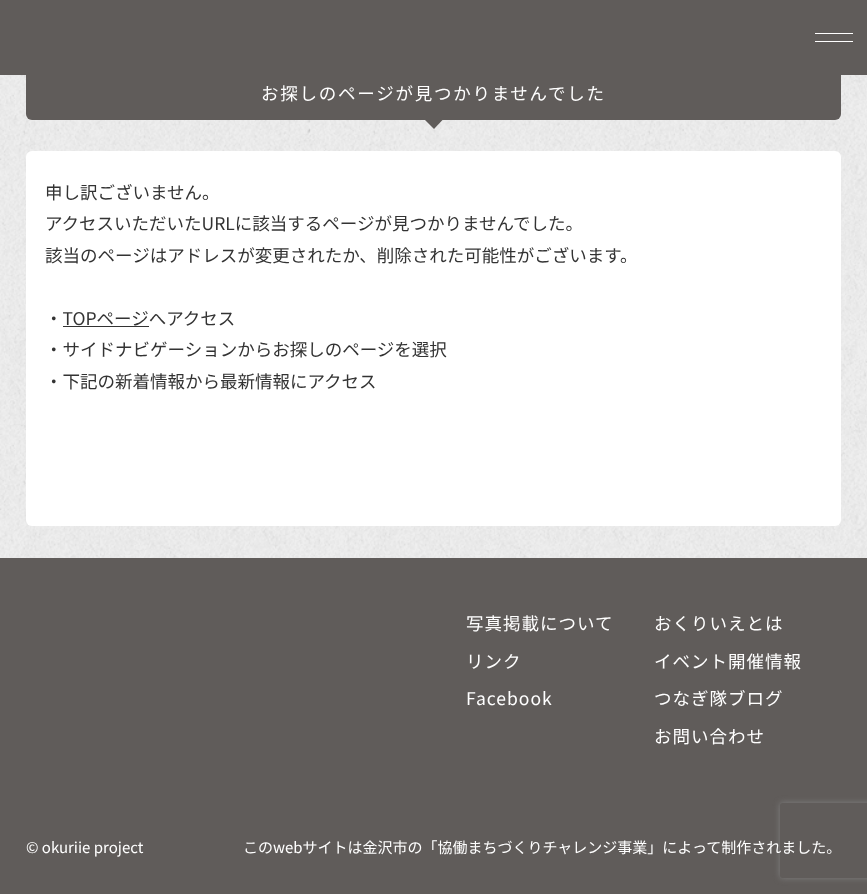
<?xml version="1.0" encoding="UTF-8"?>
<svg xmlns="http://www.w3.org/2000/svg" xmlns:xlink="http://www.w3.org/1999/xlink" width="867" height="894">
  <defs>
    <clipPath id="clip1"><path d="M 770 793 h 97 v 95 h -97 z m 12.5 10 h 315 c 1.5 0 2.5 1 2.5 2.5 v 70 c 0 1.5 -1 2.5 -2.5 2.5 h -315 c -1.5 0 -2.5 -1 -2.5 -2.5 v -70 c 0 -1.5 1 -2.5 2.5 -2.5 z" clip-rule="evenodd" /></clipPath>
  </defs>
  <rect width="100%" height="100%" fill="#ffffff" />
  <image x="0" y="75" width="867" height="483" xlink:href="image1.png" />
  <rect x="26" y="65" width="815" height="55" rx="6" fill="#605c5a" />
  <rect width="867" height="75" fill="#605c5a" />
  <rect x="815" y="33" width="38" height="1" fill="#ffffff" />
  <rect x="815" y="41" width="38" height="1" fill="#ffffff" />
  <path d="M 425 120 h 17.5 l -8.5 9 z" fill="#605c5a" />
  <rect x="26" y="151" width="815" height="375" rx="6" fill="#ffffff" />
  <rect x="63" y="326" width="86" height="1" fill="#333333" />
  <rect y="558" width="867" height="336" fill="#605c5a" />
  <g clip-path="url(#clip1)">
    <rect x="780" y="803" width="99" height="75" rx="2.5" fill="#808080" filter="blur(3px)" />
  </g>
  <text x="261" y="100" style="font-family: Noto Sans JP; font-size: 17.5px; letter-spacing: 1.75px; fill: #ffffff">お探しのページが見つかりませんでした</text>
  <text x="45" y="199" style="font-family: Noto Sans JP; font-size: 17.5px; fill: #333333">申し訳ございません。</text>
  <text x="45" y="230" style="font-family: Noto Sans JP; font-size: 17.5px; fill: #333333">アクセスいただいたURLに該当するページが見つかりませんでした。</text>
  <text x="45" y="262" style="font-family: Noto Sans JP; font-size: 17.5px; fill: #333333">該当のページはアドレスが変更されたか、削除された可能性がございます。</text>
  <text x="45" y="325" style="font-family: Noto Sans JP; font-size: 17.5px; fill: #333333">・TOPページへアクセス</text>
  <text x="45" y="356" style="font-family: Noto Sans JP; font-size: 17.5px; fill: #333333">・サイドナビゲーションからお探しのページを選択</text>
  <text x="45" y="388" style="font-family: Noto Sans JP; font-size: 17.5px; fill: #333333">・下記の新着情報から最新情報にアクセス</text>
  <text x="466" y="630" style="font-family: Noto Sans JP; font-size: 17.5px; letter-spacing: 1px; fill: #ffffff">写真掲載について</text>
  <text x="466" y="668" style="font-family: Noto Sans JP; font-size: 17.5px; letter-spacing: 1px; fill: #ffffff">リンク</text>
  <text x="466" y="705" style="font-family: Noto Sans JP; font-size: 17.5px; letter-spacing: 1px; fill: #ffffff">Facebook</text>
  <text x="654" y="630" style="font-family: Noto Sans JP; font-size: 17.5px; letter-spacing: 1px; fill: #ffffff">おくりいえとは</text>
  <text x="654" y="668" style="font-family: Noto Sans JP; font-size: 17.5px; letter-spacing: 1px; fill: #ffffff">イベント開催情報</text>
  <text x="654" y="705" style="font-family: Noto Sans JP; font-size: 17.5px; letter-spacing: 1px; fill: #ffffff">つなぎ隊ブログ</text>
  <text x="654" y="743" style="font-family: Noto Sans JP; font-size: 17.5px; letter-spacing: 1px; fill: #ffffff">お問い合わせ</text>
  <text x="26" y="853" style="font-family: Noto Sans JP; font-size: 15px; fill: #ffffff">© okuriie project</text>
  <text x="243" y="853" style="font-family: Noto Sans JP; font-size: 15px; fill: #ffffff">このwebサイトは金沢市の「協働まちづくりチャレンジ事業」によって制作されました。</text>
</svg>
